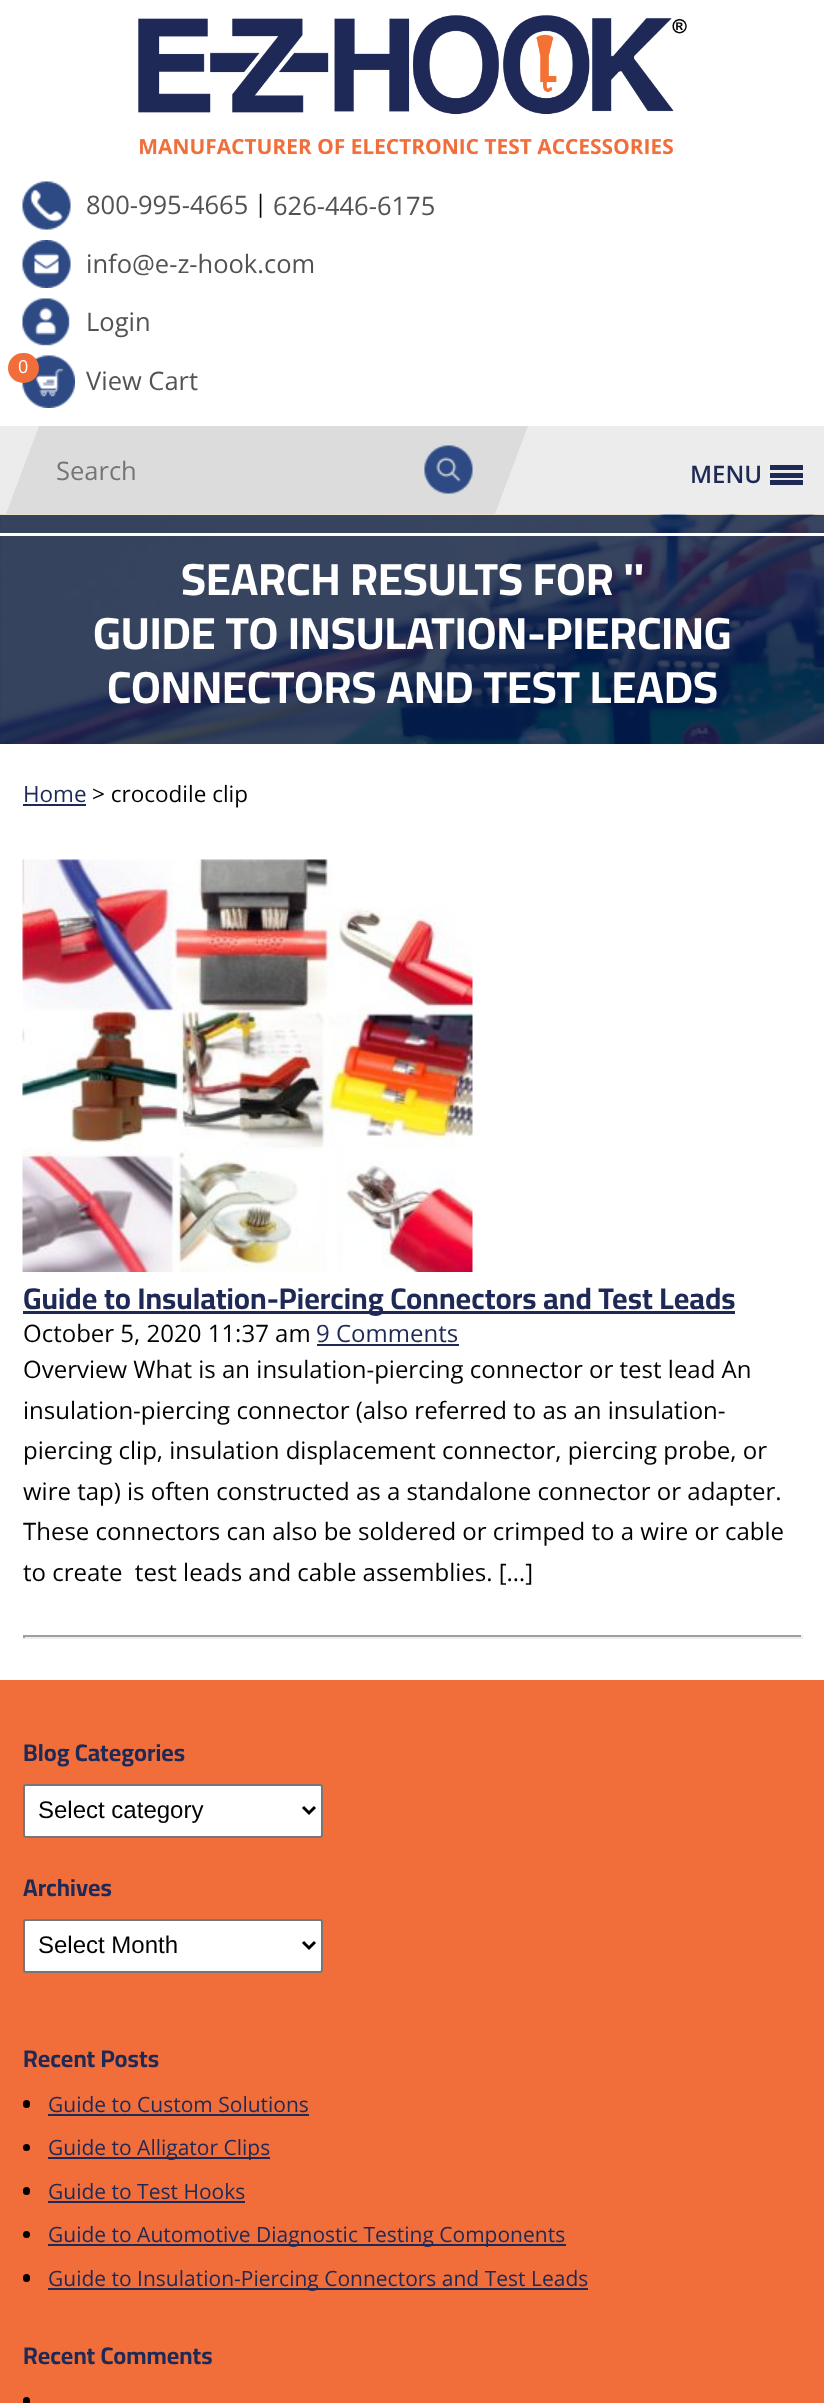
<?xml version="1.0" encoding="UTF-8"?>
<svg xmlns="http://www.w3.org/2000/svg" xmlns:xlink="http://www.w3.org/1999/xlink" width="824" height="2403">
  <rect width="100%" height="100%" fill="#ffffff" />
  <image x="138" y="15" width="549" height="140" xlink:href="image1.png" />
  <image x="22" y="181" width="49" height="49" xlink:href="image2.png" />
  <image x="22" y="240" width="49" height="48" xlink:href="image3.png" />
  <image x="22" y="298" width="48" height="48" xlink:href="image4.png" />
  <image x="22" y="355" width="53" height="53" xlink:href="image5.png" />
  <rect x="8" y="353" width="31" height="30" rx="15" fill="#f16e3a" />
  <rect y="426" width="824" height="89" fill="#ececec" />
  <path d="M 39 426 h 489 l -33 88 h -489 z" fill="#dcdcdc" />
  <image x="424" y="445" width="49" height="49" xlink:href="image6.png" />
  <rect x="770" y="473" width="33" height="5" fill="#1e2955" />
  <rect x="770" y="465" width="33" height="5" fill="#1e2955" />
  <rect x="770" y="480" width="33" height="5" fill="#1e2955" />
  <image x="0" y="514" width="824" height="230" xlink:href="image7.png" />
  <rect y="533" width="824" height="3" fill="#ffffff" />
  <rect x="23" y="804" width="63" height="2" fill="#1e2955" />
  <image x="22" y="859" width="451" height="413" xlink:href="image8.png" />
  <rect x="23" y="1311" width="712" height="3" fill="#1e2955" />
  <rect x="317" y="1344" width="142" height="2" fill="#1e2955" />
  <rect x="23" y="1635" width="780" height="2" fill="#9f9f9f" />
  <rect x="801" y="1635" width="2" height="3" fill="#eeeeee" />
  <rect x="23" y="1637" width="780" height="2" fill="#eeeeee" />
  <rect x="23" y="1635" width="2" height="3" fill="#9f9f9f" />
  <rect y="1680" width="824" height="723" fill="#f16e3a" />
  <rect x="24" y="1785" width="298" height="52" rx="2" fill="#ffffff" stroke="#767676" stroke-width="2" />
  <path d="M 303 1807 l 6 6 l 6 -6" fill="none" stroke="#000000" stroke-width="3" />
  <rect x="24" y="1920" width="298" height="52" rx="2" fill="#ffffff" stroke="#767676" stroke-width="2" />
  <path d="M 303 1942 l 6 6 l 6 -6" fill="none" stroke="#000000" stroke-width="3" />
  <rect x="23" y="2100" width="7" height="8" rx="3.5" fill="#000000" />
  <rect x="48" y="2114" width="261" height="2" fill="#1e2955" />
  <circle cx="26.5" cy="2147.5" r="3.5" fill="#000000" />
  <rect x="48" y="2157" width="222" height="2" fill="#1e2955" />
  <rect x="23" y="2187" width="7" height="8" rx="3.5" fill="#000000" />
  <rect x="48" y="2201" width="197" height="2" fill="#1e2955" />
  <circle cx="26.5" cy="2234.5" r="3.5" fill="#000000" />
  <rect x="48" y="2244" width="518" height="2" fill="#1e2955" />
  <rect x="23" y="2274" width="7" height="8" rx="3.5" fill="#000000" />
  <rect x="48" y="2288" width="540" height="2" fill="#1e2955" />
  <rect x="23" y="2397" width="7" height="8" rx="3.5" fill="#000000" />
  <text x="86" y="214" style="font-family: Open Sans; font-size: 25.5px; fill: #545353">800-995-4665</text>
  <text x="254" y="212" style="font-family: Open Sans; font-size: 24px; fill: #000000">|</text>
  <text x="273" y="215" style="font-family: Open Sans; font-size: 25.5px; fill: #545353">626-446-6175</text>
  <text x="86" y="273" style="font-family: Open Sans; font-size: 25.5px; fill: #545353">info@e-z-hook.com</text>
  <text x="86" y="331" style="font-family: Open Sans; font-size: 25.5px; fill: #545353">Login</text>
  <text x="18" y="373" style="font-family: Open Sans; font-size: 18px; fill: #ffffff">0</text>
  <text x="86" y="390" style="font-family: Open Sans; font-size: 25.5px; fill: #545353">View Cart</text>
  <text x="56" y="480" style="font-family: Open Sans; font-size: 25.5px; fill: #757575">Search</text>
  <text x="690" y="483" style="font-family: Open Sans; font-size: 24px; font-weight: 600; fill: #1e2955">MENU</text>
  <text x="181" y="595" style="font-family: Cairo; font-size: 45px; font-weight: bold; fill: #ffffff">SEARCH RESULTS FOR ''</text>
  <text x="93" y="649" style="font-family: Cairo; font-size: 45px; font-weight: bold; fill: #ffffff">GUIDE TO INSULATION-PIERCING</text>
  <text x="107" y="703" style="font-family: Cairo; font-size: 45px; font-weight: bold; fill: #ffffff">CONNECTORS AND TEST LEADS</text>
  <text x="23" y="802" style="font-family: Open Sans; font-size: 22.5px; fill: #1e2955">Home</text>
  <text x="92" y="802" style="font-family: Open Sans; font-size: 22.5px; fill: #000000">&gt; crocodile clip</text>
  <text x="23" y="1309" style="font-family: Cairo; font-size: 30px; font-weight: bold; fill: #1e2955">Guide to Insulation-Piercing Connectors and Test Leads</text>
  <text x="23" y="1342" style="font-family: Open Sans; font-size: 24px; fill: #000000">October 5, 2020 11:37 am</text>
  <text x="316" y="1342" style="font-family: Open Sans; font-size: 24px; fill: #1e2955">9 Comments</text>
  <text x="23" y="1378" style="font-family: Open Sans; font-size: 24px; fill: #000000">Overview What is an insulation-piercing connector or test lead An</text>
  <text x="23" y="1419" style="font-family: Open Sans; font-size: 24px; fill: #000000">insulation-piercing connector (also referred to as an insulation-</text>
  <text x="23" y="1459" style="font-family: Open Sans; font-size: 24px; fill: #000000">piercing clip, insulation displacement connector, piercing probe, or</text>
  <text x="23" y="1500" style="font-family: Open Sans; font-size: 24px; fill: #000000">wire tap) is often constructed as a standalone connector or adapter.</text>
  <text x="23" y="1540" style="font-family: Open Sans; font-size: 24px; fill: #000000">These connectors can also be soldered or crimped to a wire or cable</text>
  <text x="23" y="1581" style="font-family: Open Sans; font-size: 24px; fill: #000000" xml:space="preserve">to create  test leads and cable assemblies. […]</text>
  <text x="23" y="1761" style="font-family: Cairo; font-size: 24px; font-weight: bold; fill: #1e2955">Blog Categories</text>
  <text x="38" y="1818" style="font-family: Liberation Sans; font-size: 24px; fill: #000000">Select category</text>
  <text x="23" y="1896" style="font-family: Cairo; font-size: 24px; font-weight: bold; fill: #1e2955">Archives</text>
  <text x="38" y="1953" style="font-family: Liberation Sans; font-size: 24px; fill: #000000">Select Month</text>
  <text x="23" y="2067" style="font-family: Cairo; font-size: 24px; font-weight: bold; fill: #1e2955">Recent Posts</text>
  <text x="48" y="2112" style="font-family: Open Sans; font-size: 21px; fill: #1e2955">Guide to Custom Solutions</text>
  <text x="48" y="2155" style="font-family: Open Sans; font-size: 21px; fill: #1e2955">Guide to Alligator Clips</text>
  <text x="48" y="2199" style="font-family: Open Sans; font-size: 21px; fill: #1e2955">Guide to Test Hooks</text>
  <text x="48" y="2242" style="font-family: Open Sans; font-size: 21px; fill: #1e2955">Guide to Automotive Diagnostic Testing Components</text>
  <text x="48" y="2286" style="font-family: Open Sans; font-size: 21px; fill: #1e2955">Guide to Insulation-Piercing Connectors and Test Leads</text>
  <text x="23" y="2364" style="font-family: Cairo; font-size: 24px; font-weight: bold; fill: #1e2955">Recent Comments</text>
</svg>
